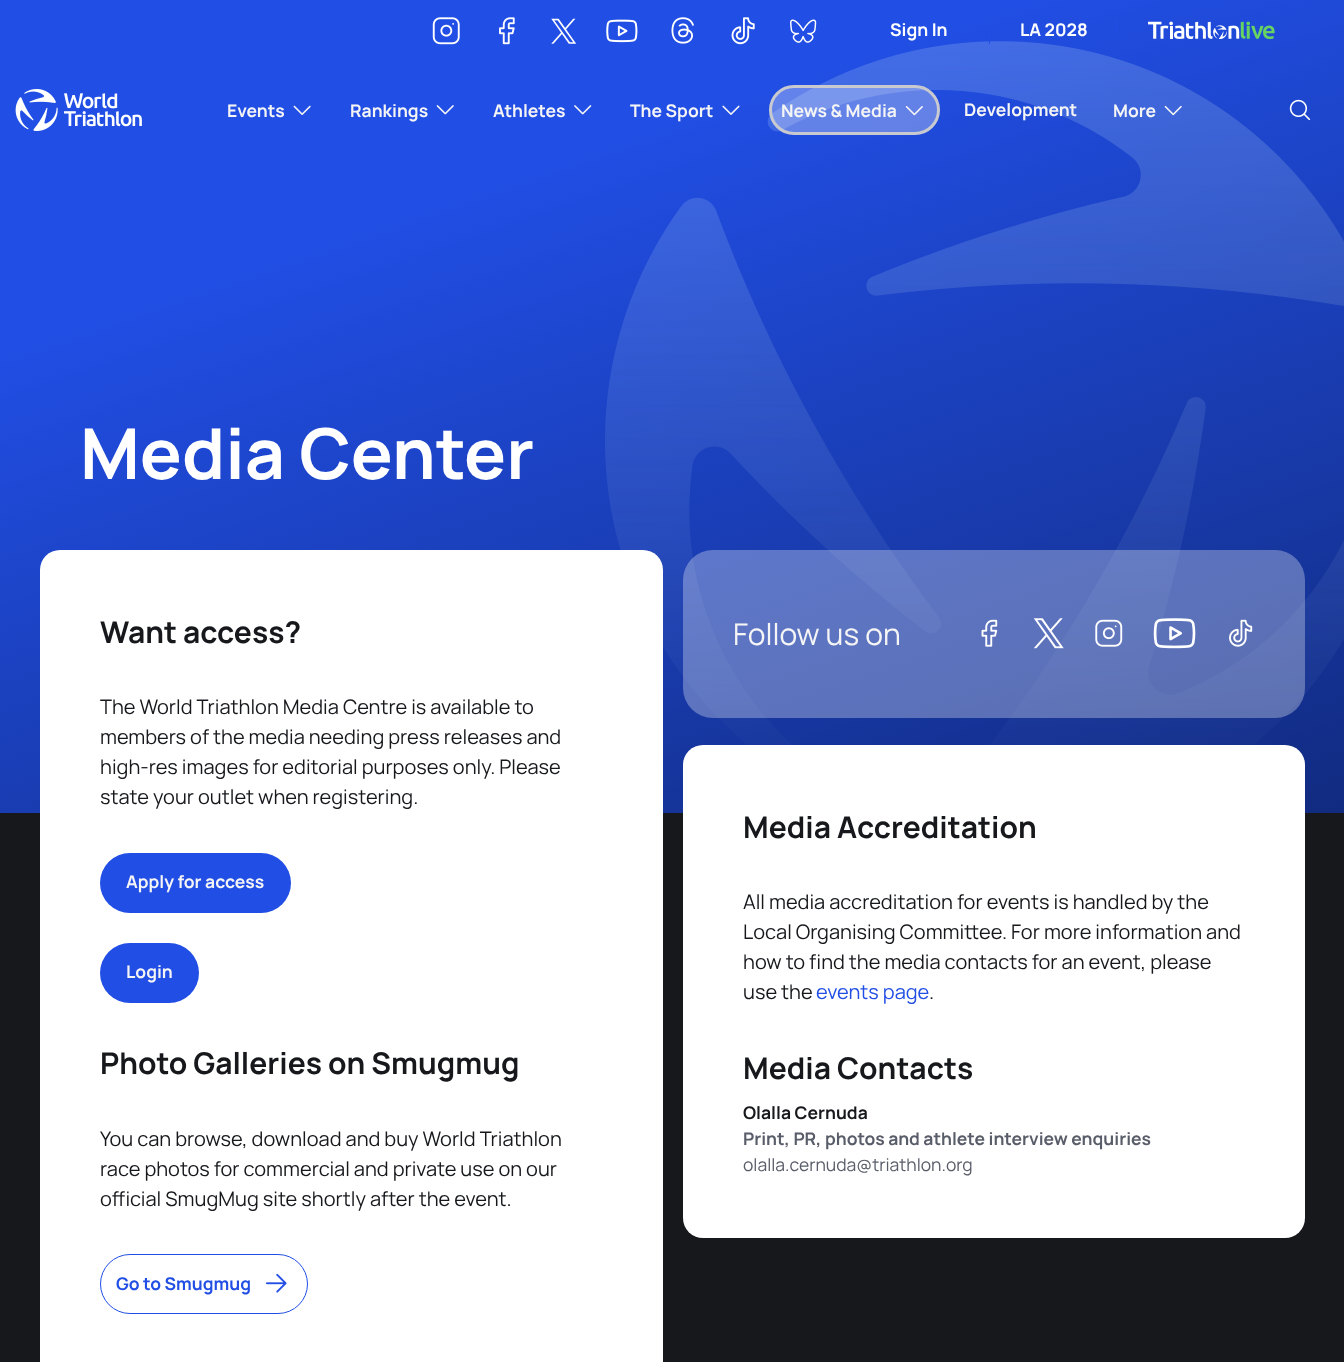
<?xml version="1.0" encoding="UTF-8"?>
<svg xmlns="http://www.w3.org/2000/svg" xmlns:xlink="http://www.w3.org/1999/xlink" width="1344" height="1362">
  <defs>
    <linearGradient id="g1" gradientUnits="userSpaceOnUse" x1="964" y1="1253" x2="476" y2="-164"><stop offset="0" stop-color="#0c1f5f" /><stop offset="0.78" stop-color="#214ee4" /></linearGradient>
  </defs>
  <rect width="100%" height="100%" fill="#17181c" />
  <rect width="1344" height="813" fill="url(#g1)" />
  <image x="432" y="17" width="28" height="28" xlink:href="image1.png" />
  <image x="499" y="17" width="16" height="28" xlink:href="image2.png" />
  <image x="551" y="18" width="26" height="26" xlink:href="image3.png" />
  <image x="605" y="41" width="739" height="704" xlink:href="image17.png" />
  <image x="606" y="19" width="32" height="24" xlink:href="image4.png" />
  <image x="671" y="17" width="23" height="27" xlink:href="image5.png" />
  <image x="731" y="17" width="24" height="28" xlink:href="image6.png" />
  <image x="790" y="19" width="27" height="24" xlink:href="image7.png" />
  <rect x="989" y="31" width="1" height="13" fill="#214ee4" />
  <rect x="1116" y="21" width="1" height="18" fill="#214ee4" />
  <image x="1148" y="21" width="127" height="19" xlink:href="image8.png" />
  <image x="15" y="89" width="127" height="42" xlink:href="image9.png" />
  <image x="293" y="105" width="18" height="10" xlink:href="image10.png" />
  <image x="436" y="105" width="18" height="10" xlink:href="image11.png" />
  <image x="574" y="105" width="18" height="10" xlink:href="image12.png" />
  <image x="722" y="105" width="18" height="10" xlink:href="image13.png" />
  <rect x="770.5" y="86.5" width="168" height="47" rx="23.5" fill="#ffffff" fill-opacity="0.3" stroke="#c8cad0" stroke-width="3" />
  <image x="905" y="106" width="18" height="10" xlink:href="image14.png" />
  <image x="1164" y="105" width="18" height="11" xlink:href="image15.png" />
  <image x="1289" y="99" width="22" height="22" xlink:href="image16.png" />
  <rect x="40" y="550" width="623" height="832" rx="20" fill="#ffffff" />
  <rect x="100" y="853" width="191" height="60" rx="30" fill="#214ee4" />
  <rect x="100" y="943" width="99" height="60" rx="30" fill="#214ee4" />
  <rect x="100.5" y="1254.5" width="207" height="59" rx="29.5" fill="none" stroke="#214ee4" />
  <image x="265" y="1273" width="22" height="20" xlink:href="image18.png" />
  <rect x="683" y="550" width="622" height="168" rx="30" fill="#ffffff" fill-opacity="0.3" />
  <image x="981" y="619" width="17" height="28" xlink:href="image19.png" />
  <image x="1033" y="618" width="31" height="31" xlink:href="image20.png" />
  <image x="1095" y="619" width="28" height="28" xlink:href="image21.png" />
  <image x="1153" y="618" width="43" height="31" xlink:href="image22.png" />
  <image x="1229" y="619" width="24" height="28" xlink:href="image23.png" />
  <rect x="683" y="745" width="622" height="493" rx="20" fill="#ffffff" />
  <text x="890" y="36" style="font-family: Manrope; font-size: 17.5px; font-weight: bold; fill: #ffffff">Sign In</text>
  <text x="1020" y="36" style="font-family: Manrope; font-size: 17.5px; font-weight: bold; fill: #ffffff">LA 2028</text>
  <text x="227" y="117" style="font-family: Manrope; font-size: 17.5px; font-weight: bold; fill: #f5f5f5">Events</text>
  <text x="350" y="117" style="font-family: Manrope; font-size: 17.5px; font-weight: bold; fill: #f5f5f5">Rankings</text>
  <text x="493" y="117" style="font-family: Manrope; font-size: 17.5px; font-weight: bold; fill: #f5f5f5">Athletes</text>
  <text x="630" y="117" style="font-family: Manrope; font-size: 17.5px; font-weight: bold; fill: #f5f5f5">The Sport</text>
  <text x="781" y="117" style="font-family: Manrope; font-size: 17.5px; font-weight: bold; fill: #f5f5f5">News &amp; Media</text>
  <text x="964" y="116" style="font-family: Manrope; font-size: 17.5px; font-weight: bold; fill: #f5f5f5">Development</text>
  <text x="1113" y="117" style="font-family: Manrope; font-size: 17.5px; font-weight: bold; fill: #f5f5f5">More</text>
  <text x="80" y="479" style="font-family: Manrope; font-size: 70px; font-weight: bold; fill: #ffffff">Media Center</text>
  <text x="100" y="643" style="font-family: Manrope; font-size: 30px; font-weight: bold; fill: #17181c">Want access?</text>
  <text x="100" y="714" style="font-family: Manrope; font-size: 20px; fill: #17181c">The World Triathlon Media Centre is available to</text>
  <text x="100" y="744" style="font-family: Manrope; font-size: 20px; fill: #17181c">members of the media needing press releases and</text>
  <text x="100" y="774" style="font-family: Manrope; font-size: 20px; fill: #17181c">high-res images for editorial purposes only. Please</text>
  <text x="100" y="804" style="font-family: Manrope; font-size: 20px; fill: #17181c">state your outlet when registering.</text>
  <text x="126" y="888" style="font-family: Manrope; font-size: 17.5px; font-weight: bold; fill: #f5f5f5">Apply for access</text>
  <text x="126" y="978" style="font-family: Manrope; font-size: 17.5px; font-weight: bold; fill: #f5f5f5">Login</text>
  <text x="100" y="1074" style="font-family: Manrope; font-size: 30px; font-weight: bold; fill: #17181c">Photo Galleries on Smugmug</text>
  <text x="100" y="1146" style="font-family: Manrope; font-size: 20px; fill: #17181c">You can browse, download and buy World Triathlon</text>
  <text x="100" y="1176" style="font-family: Manrope; font-size: 20px; fill: #17181c">race photos for commercial and private use on our</text>
  <text x="100" y="1206" style="font-family: Manrope; font-size: 20px; fill: #17181c">official SmugMug site shortly after the event.</text>
  <text x="116" y="1290" style="font-family: Manrope; font-size: 17.5px; font-weight: bold; fill: #214ee4">Go to Smugmug</text>
  <text x="733" y="645" style="font-family: Manrope; font-size: 30px; fill: #f5f5f5">Follow us on</text>
  <text x="743" y="838" style="font-family: Manrope; font-size: 30px; font-weight: bold; fill: #17181c">Media Accreditation</text>
  <text x="743" y="909" style="font-family: Manrope; font-size: 20px; fill: #17181c">All media accreditation for events is handled by the</text>
  <text x="743" y="939" style="font-family: Manrope; font-size: 20px; fill: #17181c">Local Organising Committee. For more information and</text>
  <text x="743" y="969" style="font-family: Manrope; font-size: 20px; fill: #17181c">how to find the media contacts for an event, please</text>
  <text x="743" y="999" style="font-family: Manrope; font-size: 20px; fill: #17181c">use the</text>
  <text x="816" y="999" style="font-family: Manrope; font-size: 20px; fill: #214ee4">events page</text>
  <text x="929" y="999" style="font-family: Manrope; font-size: 20px; fill: #17181c">.</text>
  <text x="743" y="1079" style="font-family: Manrope; font-size: 30px; font-weight: bold; fill: #17181c">Media Contacts</text>
  <text x="743" y="1119" style="font-family: Manrope; font-size: 17.5px; font-weight: bold; fill: #17181c">Olalla Cernuda</text>
  <text x="743" y="1145" style="font-family: Manrope; font-size: 17.5px; font-weight: bold; fill: #595d69">Print, PR, photos and athlete interview enquiries</text>
  <text x="743" y="1171" style="font-family: Manrope; font-size: 17.5px; fill: #595d69">olalla.cernuda@triathlon.org</text>
</svg>
